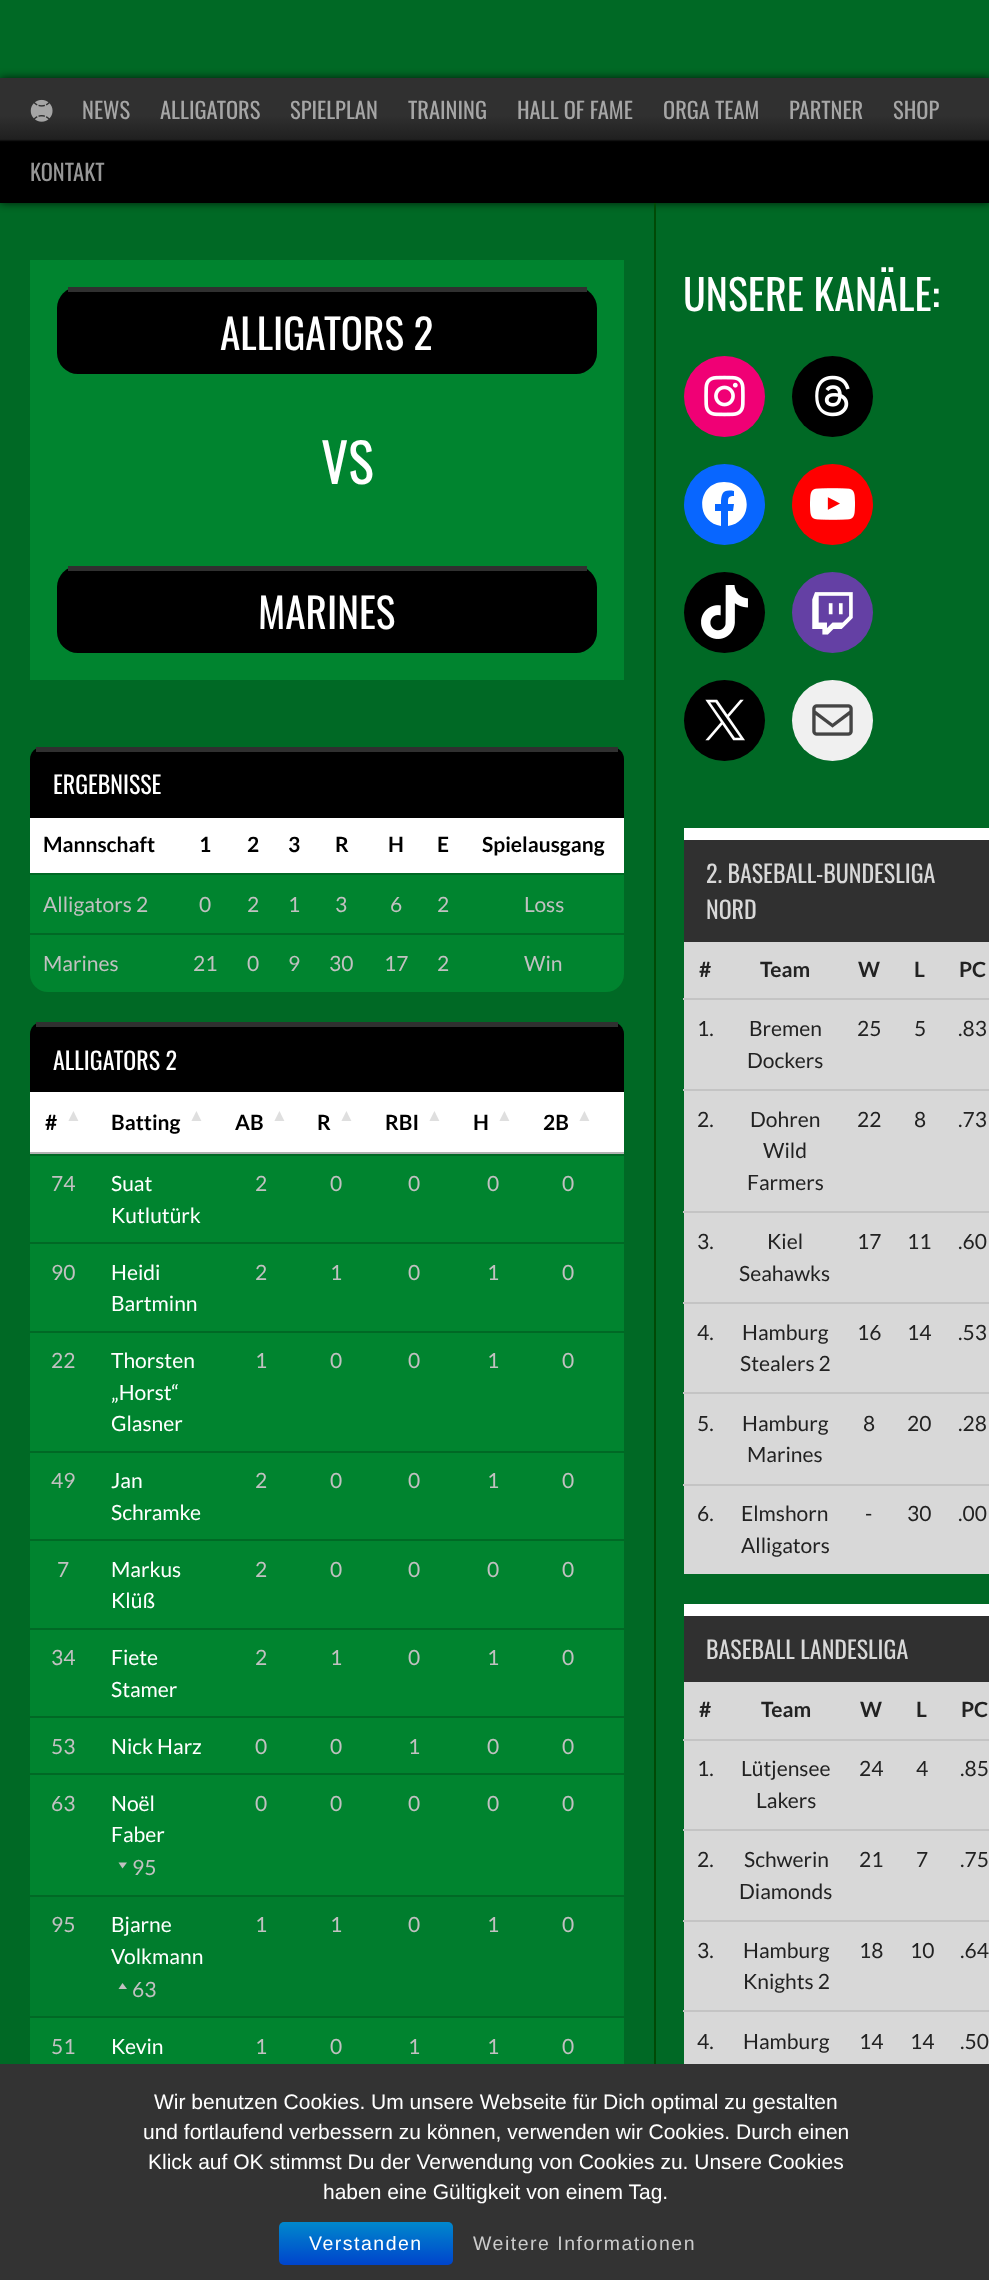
<?xml version="1.0" encoding="UTF-8"?>
<svg xmlns="http://www.w3.org/2000/svg" xmlns:xlink="http://www.w3.org/1999/xlink" width="989" height="2280">
  <defs>
    <linearGradient id="g1" gradientUnits="userSpaceOnUse" x1="495" y1="78" x2="495" y2="203"><stop offset="0.3" stop-color="#303030" /><stop offset="0.49" stop-color="#202020" /><stop offset="0.51" stop-color="#000000" /></linearGradient>
    <linearGradient id="g2" gradientUnits="userSpaceOnUse" x1="366" y1="2222" x2="366" y2="2265"><stop offset="0" stop-color="#0088cc" /><stop offset="1" stop-color="#0044cc" /></linearGradient>
  </defs>
  <rect width="100%" height="100%" fill="#006925" />
  <rect y="78" width="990" height="125" fill="#000000" fill-opacity="0.75" filter="blur(4px)" />
  <rect y="78" width="989" height="125" fill="url(#g1)" />
  <image x="30" y="99" width="23" height="23" xlink:href="image1.png" />
  <rect x="654" y="203" width="2" height="1861" fill="#004a06" />
  <rect x="30" y="260" width="594" height="420" fill="#00842f" />
  <rect x="57" y="287" width="540" height="87" rx="21" fill="#000000" />
  <rect x="68" y="287" width="519" height="5" fill="#303030" />
  <rect x="57" y="566" width="540" height="87" rx="21" fill="#000000" />
  <rect x="68" y="566" width="519" height="5" fill="#303030" />
  <rect x="30" y="816" width="594" height="176" rx="18" fill="#00842f" />
  <path d="M 42 747 h 570 c 6.5 0 12 5.5 12 12 v 59 h -594 v -59 c 0 -6.5 5.5 -12 12 -12 z" fill="#000000" />
  <rect x="36" y="747" width="582" height="5" fill="#303030" />
  <rect x="30" y="818" width="594" height="55" fill="#ffffff" />
  <rect x="30" y="873" width="594" height="2" fill="#006925" />
  <rect x="30" y="933" width="594" height="2" fill="#006925" />
  <path d="M 42 1022 h 570 c 6.5 0 12 5.5 12 12 v 58 h -594 v -58 c 0 -6.5 5.5 -12 12 -12 z" fill="#000000" />
  <rect x="36" y="1022" width="582" height="5" fill="#303030" />
  <rect x="30" y="1156" width="594" height="908" fill="#00842f" />
  <rect x="30" y="1092" width="594" height="60" fill="#ffffff" />
  <rect x="30" y="1152" width="594" height="2" fill="#b3b3b3" />
  <rect x="30" y="1242" width="594" height="2" fill="#006925" />
  <rect x="30" y="1331" width="594" height="2" fill="#006925" />
  <rect x="30" y="1451" width="594" height="2" fill="#006925" />
  <rect x="30" y="1539" width="594" height="2" fill="#006925" />
  <rect x="30" y="1628" width="594" height="2" fill="#006925" />
  <rect x="30" y="1716" width="594" height="2" fill="#006925" />
  <rect x="30" y="1773" width="594" height="2" fill="#006925" />
  <path d="M 127 1862.5 l -4.5 6 l -4 -6 z" fill="#c1c1c1" />
  <rect x="30" y="1897" width="594" height="119" fill="#007d2d" />
  <rect x="30" y="1895" width="594" height="2" fill="#006925" />
  <path d="M 122.5 1983 l -4 6 h 8.5 z" fill="#c1c1c1" />
  <rect x="30" y="2016" width="594" height="2" fill="#006925" />
  <circle cx="724.5" cy="396.5" r="40.5" fill="#f00075" />
  <image x="704" y="375" width="41" height="42" xlink:href="image2.png" />
  <circle cx="832.5" cy="396.5" r="40.5" fill="#000000" />
  <image x="815" y="375" width="35" height="42" xlink:href="image3.png" />
  <circle cx="724.5" cy="504.5" r="40.5" fill="#0866ff" />
  <path d="M 724 482 c -27 0 -30 40 -3 44 v -15 h -6 v -7 h 6 c 0 -11 2 -15 13 -13 v 5 c -6 0 -6 2 -6 8 h 6 l -1 7 h -5 v 15 c 27 -4 24 -44 -4 -44 z" fill="#ffffff" />
  <circle cx="832.5" cy="504.5" r="40.5" fill="#ff0000" />
  <image x="810" y="488" width="45" height="32" xlink:href="image4.png" />
  <circle cx="724.5" cy="612.5" r="40.5" fill="#000000" />
  <image x="701" y="585" width="47" height="54" xlink:href="image5.png" />
  <circle cx="832.5" cy="612.5" r="40.5" fill="#6440a4" />
  <image x="812" y="592" width="41" height="43" xlink:href="image6.png" />
  <circle cx="724.5" cy="720.5" r="40.5" fill="#000000" />
  <image x="705" y="699" width="40" height="42" xlink:href="image7.png" />
  <circle cx="832.5" cy="720.5" r="40.5" fill="#f0f0f0" />
  <image x="812" y="704" width="41" height="32" xlink:href="image8.png" />
  <rect x="684" y="942" width="305" height="632" fill="#d8d8d8" />
  <rect x="684" y="840" width="305" height="102" fill="#303030" />
  <rect x="684" y="828" width="305" height="12" fill="#ffffff" />
  <rect x="683" y="998" width="306" height="2" fill="#c4c4c4" />
  <rect x="683" y="1089" width="306" height="2" fill="#c4c4c4" />
  <rect x="683" y="1211" width="306" height="2" fill="#c4c4c4" />
  <rect x="683" y="1302" width="306" height="2" fill="#c4c4c4" />
  <rect x="683" y="1392" width="306" height="2" fill="#c4c4c4" />
  <rect x="683" y="1484" width="306" height="2" fill="#c4c4c4" />
  <rect x="684" y="1682" width="305" height="382" fill="#d8d8d8" />
  <rect x="684" y="1616" width="305" height="66" fill="#303030" />
  <rect x="684" y="1604" width="305" height="12" fill="#ffffff" />
  <rect x="683" y="1739" width="306" height="2" fill="#c4c4c4" />
  <rect x="683" y="1829" width="306" height="2" fill="#c4c4c4" />
  <rect x="683" y="1920" width="306" height="2" fill="#c4c4c4" />
  <rect x="683" y="2010" width="306" height="2" fill="#c4c4c4" />
  <rect y="2064" width="989" height="216" fill="#333333" />
  <rect x="279" y="2222" width="174" height="43" rx="5" fill="url(#g2)" />
  <text x="82" y="119" style="font-family: Oswald; font-size: 22.5px; fill: #a6a6a6">NEWS</text>
  <text x="160" y="119" style="font-family: Oswald; font-size: 22.5px; fill: #a6a6a6">ALLIGATORS</text>
  <text x="290" y="119" style="font-family: Oswald; font-size: 22.5px; fill: #a6a6a6">SPIELPLAN</text>
  <text x="408" y="119" style="font-family: Oswald; font-size: 22.5px; fill: #a6a6a6">TRAINING</text>
  <text x="517" y="119" style="font-family: Oswald; font-size: 22.5px; fill: #a6a6a6">HALL OF FAME</text>
  <text x="663" y="119" style="font-family: Oswald; font-size: 22.5px; fill: #a6a6a6">ORGA TEAM</text>
  <text x="789" y="119" style="font-family: Oswald; font-size: 22.5px; fill: #a6a6a6">PARTNER</text>
  <text x="893" y="119" style="font-family: Oswald; font-size: 22.5px; fill: #a6a6a6">SHOP</text>
  <text x="30" y="181" style="font-family: Oswald; font-size: 22.5px; fill: #979797">KONTAKT</text>
  <text x="220" y="350" style="font-family: Oswald; font-size: 41.25px; fill: #ffffff">ALLIGATORS 2</text>
  <text x="321" y="484" style="font-family: Oswald; font-size: 54px; fill: #ffffff">VS</text>
  <text x="258" y="629" style="font-family: Oswald; font-size: 41.25px; fill: #ffffff">MARINES</text>
  <text x="53" y="794" style="font-family: Oswald; font-size: 24px; fill: #ffffff">ERGEBNISSE</text>
  <text x="43" y="852" style="font-family: Lato; font-size: 21px; font-weight: bold; fill: #000000">Mannschaft</text>
  <text x="199" y="852" style="font-family: Lato; font-size: 21px; font-weight: bold; fill: #000000">1</text>
  <text x="247" y="852" style="font-family: Lato; font-size: 21px; font-weight: bold; fill: #000000">2</text>
  <text x="288" y="852" style="font-family: Lato; font-size: 21px; font-weight: bold; fill: #000000">3</text>
  <text x="335" y="852" style="font-family: Lato; font-size: 21px; font-weight: bold; fill: #000000">R</text>
  <text x="388" y="852" style="font-family: Lato; font-size: 21px; font-weight: bold; fill: #000000">H</text>
  <text x="437" y="852" style="font-family: Lato; font-size: 21px; font-weight: bold; fill: #000000">E</text>
  <text x="482" y="852" style="font-family: Lato; font-size: 21px; font-weight: bold; fill: #000000">Spielausgang</text>
  <text x="43" y="912" style="font-family: Lato; font-size: 21px; fill: #c1c1c1">Alligators 2</text>
  <text x="199" y="912" style="font-family: Lato; font-size: 21px; fill: #c1c1c1">0</text>
  <text x="247" y="912" style="font-family: Lato; font-size: 21px; fill: #c1c1c1">2</text>
  <text x="288" y="912" style="font-family: Lato; font-size: 21px; fill: #c1c1c1">1</text>
  <text x="335" y="912" style="font-family: Lato; font-size: 21px; fill: #c1c1c1">3</text>
  <text x="390" y="912" style="font-family: Lato; font-size: 21px; fill: #c1c1c1">6</text>
  <text x="437" y="912" style="font-family: Lato; font-size: 21px; fill: #c1c1c1">2</text>
  <text x="524" y="912" style="font-family: Lato; font-size: 21px; fill: #c1c1c1">Loss</text>
  <text x="43" y="971" style="font-family: Lato; font-size: 21px; fill: #c1c1c1">Marines</text>
  <text x="193" y="971" style="font-family: Lato; font-size: 21px; fill: #c1c1c1">21</text>
  <text x="247" y="971" style="font-family: Lato; font-size: 21px; fill: #c1c1c1">0</text>
  <text x="288" y="971" style="font-family: Lato; font-size: 21px; fill: #c1c1c1">9</text>
  <text x="329" y="971" style="font-family: Lato; font-size: 21px; fill: #c1c1c1">30</text>
  <text x="384" y="971" style="font-family: Lato; font-size: 21px; fill: #c1c1c1">17</text>
  <text x="437" y="971" style="font-family: Lato; font-size: 21px; fill: #c1c1c1">2</text>
  <text x="524" y="971" style="font-family: Lato; font-size: 21px; fill: #c1c1c1">Win</text>
  <text x="53" y="1070" style="font-family: Oswald; font-size: 24px; fill: #ffffff">ALLIGATORS 2</text>
  <text x="45" y="1130" style="font-family: Lato; font-size: 21px; font-weight: bold; fill: #000000">#</text>
  <text x="65" y="1121" style="font-family: Liberation Sans; font-size: 17px; font-weight: bold; fill: #dfdfdf">▲</text>
  <text x="111" y="1130" style="font-family: Lato; font-size: 21px; font-weight: bold; fill: #000000">Batting</text>
  <text x="188" y="1121" style="font-family: Liberation Sans; font-size: 17px; font-weight: bold; fill: #dfdfdf">▲</text>
  <text x="235" y="1130" style="font-family: Lato; font-size: 21px; font-weight: bold; fill: #000000">AB</text>
  <text x="271" y="1121" style="font-family: Liberation Sans; font-size: 17px; font-weight: bold; fill: #dfdfdf">▲</text>
  <text x="317" y="1130" style="font-family: Lato; font-size: 21px; font-weight: bold; fill: #000000">R</text>
  <text x="338" y="1121" style="font-family: Liberation Sans; font-size: 17px; font-weight: bold; fill: #dfdfdf">▲</text>
  <text x="385" y="1130" style="font-family: Lato; font-size: 21px; font-weight: bold; fill: #000000">RBI</text>
  <text x="426" y="1121" style="font-family: Liberation Sans; font-size: 17px; font-weight: bold; fill: #dfdfdf">▲</text>
  <text x="473" y="1130" style="font-family: Lato; font-size: 21px; font-weight: bold; fill: #000000">H</text>
  <text x="496" y="1121" style="font-family: Liberation Sans; font-size: 17px; font-weight: bold; fill: #dfdfdf">▲</text>
  <text x="543" y="1130" style="font-family: Lato; font-size: 21px; font-weight: bold; fill: #000000">2B</text>
  <text x="576" y="1121" style="font-family: Liberation Sans; font-size: 17px; font-weight: bold; fill: #dfdfdf">▲</text>
  <text x="51" y="1191" style="font-family: Lato; font-size: 21px; fill: #c1c1c1">74</text>
  <text x="111" y="1191" style="font-family: Lato; font-size: 21px; fill: #ffffff">Suat</text>
  <text x="111" y="1223" style="font-family: Lato; font-size: 21px; fill: #ffffff">Kutlutürk</text>
  <text x="255" y="1191" style="font-family: Lato; font-size: 21px; fill: #c1c1c1">2</text>
  <text x="330" y="1191" style="font-family: Lato; font-size: 21px; fill: #c1c1c1">0</text>
  <text x="408" y="1191" style="font-family: Lato; font-size: 21px; fill: #c1c1c1">0</text>
  <text x="487" y="1191" style="font-family: Lato; font-size: 21px; fill: #c1c1c1">0</text>
  <text x="562" y="1191" style="font-family: Lato; font-size: 21px; fill: #c1c1c1">0</text>
  <text x="51" y="1280" style="font-family: Lato; font-size: 21px; fill: #c1c1c1">90</text>
  <text x="111" y="1280" style="font-family: Lato; font-size: 21px; fill: #ffffff">Heidi</text>
  <text x="111" y="1311" style="font-family: Lato; font-size: 21px; fill: #ffffff">Bartminn</text>
  <text x="255" y="1280" style="font-family: Lato; font-size: 21px; fill: #c1c1c1">2</text>
  <text x="330" y="1280" style="font-family: Lato; font-size: 21px; fill: #c1c1c1">1</text>
  <text x="408" y="1280" style="font-family: Lato; font-size: 21px; fill: #c1c1c1">0</text>
  <text x="487" y="1280" style="font-family: Lato; font-size: 21px; fill: #c1c1c1">1</text>
  <text x="562" y="1280" style="font-family: Lato; font-size: 21px; fill: #c1c1c1">0</text>
  <text x="51" y="1368" style="font-family: Lato; font-size: 21px; fill: #c1c1c1">22</text>
  <text x="111" y="1368" style="font-family: Lato; font-size: 21px; fill: #ffffff">Thorsten</text>
  <text x="111" y="1400" style="font-family: Lato; font-size: 21px; fill: #ffffff">„Horst“</text>
  <text x="111" y="1431" style="font-family: Lato; font-size: 21px; fill: #ffffff">Glasner</text>
  <text x="255" y="1368" style="font-family: Lato; font-size: 21px; fill: #c1c1c1">1</text>
  <text x="330" y="1368" style="font-family: Lato; font-size: 21px; fill: #c1c1c1">0</text>
  <text x="408" y="1368" style="font-family: Lato; font-size: 21px; fill: #c1c1c1">0</text>
  <text x="487" y="1368" style="font-family: Lato; font-size: 21px; fill: #c1c1c1">1</text>
  <text x="562" y="1368" style="font-family: Lato; font-size: 21px; fill: #c1c1c1">0</text>
  <text x="51" y="1488" style="font-family: Lato; font-size: 21px; fill: #c1c1c1">49</text>
  <text x="111" y="1488" style="font-family: Lato; font-size: 21px; fill: #ffffff">Jan</text>
  <text x="111" y="1520" style="font-family: Lato; font-size: 21px; fill: #ffffff">Schramke</text>
  <text x="255" y="1488" style="font-family: Lato; font-size: 21px; fill: #c1c1c1">2</text>
  <text x="330" y="1488" style="font-family: Lato; font-size: 21px; fill: #c1c1c1">0</text>
  <text x="408" y="1488" style="font-family: Lato; font-size: 21px; fill: #c1c1c1">0</text>
  <text x="487" y="1488" style="font-family: Lato; font-size: 21px; fill: #c1c1c1">1</text>
  <text x="562" y="1488" style="font-family: Lato; font-size: 21px; fill: #c1c1c1">0</text>
  <text x="57" y="1577" style="font-family: Lato; font-size: 21px; fill: #c1c1c1">7</text>
  <text x="111" y="1577" style="font-family: Lato; font-size: 21px; fill: #ffffff">Markus</text>
  <text x="111" y="1608" style="font-family: Lato; font-size: 21px; fill: #ffffff">Klüß</text>
  <text x="255" y="1577" style="font-family: Lato; font-size: 21px; fill: #c1c1c1">2</text>
  <text x="330" y="1577" style="font-family: Lato; font-size: 21px; fill: #c1c1c1">0</text>
  <text x="408" y="1577" style="font-family: Lato; font-size: 21px; fill: #c1c1c1">0</text>
  <text x="487" y="1577" style="font-family: Lato; font-size: 21px; fill: #c1c1c1">0</text>
  <text x="562" y="1577" style="font-family: Lato; font-size: 21px; fill: #c1c1c1">0</text>
  <text x="51" y="1665" style="font-family: Lato; font-size: 21px; fill: #c1c1c1">34</text>
  <text x="111" y="1665" style="font-family: Lato; font-size: 21px; fill: #ffffff">Fiete</text>
  <text x="111" y="1697" style="font-family: Lato; font-size: 21px; fill: #ffffff">Stamer</text>
  <text x="255" y="1665" style="font-family: Lato; font-size: 21px; fill: #c1c1c1">2</text>
  <text x="330" y="1665" style="font-family: Lato; font-size: 21px; fill: #c1c1c1">1</text>
  <text x="408" y="1665" style="font-family: Lato; font-size: 21px; fill: #c1c1c1">0</text>
  <text x="487" y="1665" style="font-family: Lato; font-size: 21px; fill: #c1c1c1">1</text>
  <text x="562" y="1665" style="font-family: Lato; font-size: 21px; fill: #c1c1c1">0</text>
  <text x="51" y="1754" style="font-family: Lato; font-size: 21px; fill: #c1c1c1">53</text>
  <text x="111" y="1754" style="font-family: Lato; font-size: 21px; fill: #ffffff">Nick Harz</text>
  <text x="255" y="1754" style="font-family: Lato; font-size: 21px; fill: #c1c1c1">0</text>
  <text x="330" y="1754" style="font-family: Lato; font-size: 21px; fill: #c1c1c1">0</text>
  <text x="408" y="1754" style="font-family: Lato; font-size: 21px; fill: #c1c1c1">1</text>
  <text x="487" y="1754" style="font-family: Lato; font-size: 21px; fill: #c1c1c1">0</text>
  <text x="562" y="1754" style="font-family: Lato; font-size: 21px; fill: #c1c1c1">0</text>
  <text x="51" y="1811" style="font-family: Lato; font-size: 21px; fill: #c1c1c1">63</text>
  <text x="111" y="1811" style="font-family: Lato; font-size: 21px; fill: #ffffff">Noël</text>
  <text x="111" y="1842" style="font-family: Lato; font-size: 21px; fill: #ffffff">Faber</text>
  <text x="132" y="1875" style="font-family: Lato; font-size: 21px; fill: #c1c1c1">95</text>
  <text x="255" y="1811" style="font-family: Lato; font-size: 21px; fill: #c1c1c1">0</text>
  <text x="330" y="1811" style="font-family: Lato; font-size: 21px; fill: #c1c1c1">0</text>
  <text x="408" y="1811" style="font-family: Lato; font-size: 21px; fill: #c1c1c1">0</text>
  <text x="487" y="1811" style="font-family: Lato; font-size: 21px; fill: #c1c1c1">0</text>
  <text x="562" y="1811" style="font-family: Lato; font-size: 21px; fill: #c1c1c1">0</text>
  <text x="51" y="1932" style="font-family: Lato; font-size: 21px; fill: #c1c1c1">95</text>
  <text x="111" y="1932" style="font-family: Lato; font-size: 21px; fill: #ffffff">Bjarne</text>
  <text x="111" y="1964" style="font-family: Lato; font-size: 21px; fill: #ffffff">Volkmann</text>
  <text x="132" y="1997" style="font-family: Lato; font-size: 21px; fill: #c1c1c1">63</text>
  <text x="255" y="1932" style="font-family: Lato; font-size: 21px; fill: #c1c1c1">1</text>
  <text x="330" y="1932" style="font-family: Lato; font-size: 21px; fill: #c1c1c1">1</text>
  <text x="408" y="1932" style="font-family: Lato; font-size: 21px; fill: #c1c1c1">0</text>
  <text x="487" y="1932" style="font-family: Lato; font-size: 21px; fill: #c1c1c1">1</text>
  <text x="562" y="1932" style="font-family: Lato; font-size: 21px; fill: #c1c1c1">0</text>
  <text x="51" y="2054" style="font-family: Lato; font-size: 21px; fill: #c1c1c1">51</text>
  <text x="111" y="2054" style="font-family: Lato; font-size: 21px; fill: #ffffff">Kevin</text>
  <text x="255" y="2054" style="font-family: Lato; font-size: 21px; fill: #c1c1c1">1</text>
  <text x="330" y="2054" style="font-family: Lato; font-size: 21px; fill: #c1c1c1">0</text>
  <text x="408" y="2054" style="font-family: Lato; font-size: 21px; fill: #c1c1c1">1</text>
  <text x="487" y="2054" style="font-family: Lato; font-size: 21px; fill: #c1c1c1">1</text>
  <text x="562" y="2054" style="font-family: Lato; font-size: 21px; fill: #c1c1c1">0</text>
  <text x="683" y="311" style="font-family: Oswald; font-size: 42px; fill: #ffffff">UNSERE KANÄLE:</text>
  <text x="706" y="883" style="font-family: Oswald; font-size: 24px; fill: #d8d8d8">2. BASEBALL-BUNDESLIGA</text>
  <text x="706" y="919" style="font-family: Oswald; font-size: 24px; fill: #d8d8d8">NORD</text>
  <text x="699" y="977" style="font-family: Lato; font-size: 21px; font-weight: bold; fill: #222222">#</text>
  <text x="760" y="977" style="font-family: Lato; font-size: 21px; font-weight: bold; fill: #222222">Team</text>
  <text x="858" y="977" style="font-family: Lato; font-size: 21px; font-weight: bold; fill: #222222">W</text>
  <text x="914" y="977" style="font-family: Lato; font-size: 21px; font-weight: bold; fill: #222222">L</text>
  <text x="959" y="977" style="font-family: Lato; font-size: 21px; font-weight: bold; fill: #222222">PC</text>
  <text x="697" y="1036" style="font-family: Lato; font-size: 21px; fill: #222222">1.</text>
  <text x="749" y="1036" style="font-family: Lato; font-size: 21px; fill: #222222">Bremen</text>
  <text x="747" y="1068" style="font-family: Lato; font-size: 21px; fill: #222222">Dockers</text>
  <text x="857" y="1036" style="font-family: Lato; font-size: 21px; fill: #222222">25</text>
  <text x="914" y="1036" style="font-family: Lato; font-size: 21px; fill: #222222">5</text>
  <text x="958" y="1036" style="font-family: Lato; font-size: 21px; fill: #222222">.83</text>
  <text x="697" y="1127" style="font-family: Lato; font-size: 21px; fill: #222222">2.</text>
  <text x="750" y="1127" style="font-family: Lato; font-size: 21px; fill: #222222">Dohren</text>
  <text x="763" y="1158" style="font-family: Lato; font-size: 21px; fill: #222222">Wild</text>
  <text x="747" y="1190" style="font-family: Lato; font-size: 21px; fill: #222222">Farmers</text>
  <text x="857" y="1127" style="font-family: Lato; font-size: 21px; fill: #222222">22</text>
  <text x="914" y="1127" style="font-family: Lato; font-size: 21px; fill: #222222">8</text>
  <text x="958" y="1127" style="font-family: Lato; font-size: 21px; fill: #222222">.73</text>
  <text x="697" y="1249" style="font-family: Lato; font-size: 21px; fill: #222222">3.</text>
  <text x="767" y="1249" style="font-family: Lato; font-size: 21px; fill: #222222">Kiel</text>
  <text x="739" y="1281" style="font-family: Lato; font-size: 21px; fill: #222222">Seahawks</text>
  <text x="857" y="1249" style="font-family: Lato; font-size: 21px; fill: #222222">17</text>
  <text x="907" y="1249" style="font-family: Lato; font-size: 21px; fill: #222222">11</text>
  <text x="958" y="1249" style="font-family: Lato; font-size: 21px; fill: #222222">.60</text>
  <text x="697" y="1340" style="font-family: Lato; font-size: 21px; fill: #222222">4.</text>
  <text x="742" y="1340" style="font-family: Lato; font-size: 21px; fill: #222222">Hamburg</text>
  <text x="740" y="1371" style="font-family: Lato; font-size: 21px; fill: #222222">Stealers 2</text>
  <text x="857" y="1340" style="font-family: Lato; font-size: 21px; fill: #222222">16</text>
  <text x="907" y="1340" style="font-family: Lato; font-size: 21px; fill: #222222">14</text>
  <text x="958" y="1340" style="font-family: Lato; font-size: 21px; fill: #222222">.53</text>
  <text x="697" y="1431" style="font-family: Lato; font-size: 21px; fill: #222222">5.</text>
  <text x="742" y="1431" style="font-family: Lato; font-size: 21px; fill: #222222">Hamburg</text>
  <text x="747" y="1462" style="font-family: Lato; font-size: 21px; fill: #222222">Marines</text>
  <text x="863" y="1431" style="font-family: Lato; font-size: 21px; fill: #222222">8</text>
  <text x="907" y="1431" style="font-family: Lato; font-size: 21px; fill: #222222">20</text>
  <text x="958" y="1431" style="font-family: Lato; font-size: 21px; fill: #222222">.28</text>
  <text x="697" y="1521" style="font-family: Lato; font-size: 21px; fill: #222222">6.</text>
  <text x="741" y="1521" style="font-family: Lato; font-size: 21px; fill: #222222">Elmshorn</text>
  <text x="741" y="1553" style="font-family: Lato; font-size: 21px; fill: #222222">Alligators</text>
  <text x="865" y="1521" style="font-family: Lato; font-size: 21px; fill: #222222">-</text>
  <text x="907" y="1521" style="font-family: Lato; font-size: 21px; fill: #222222">30</text>
  <text x="958" y="1521" style="font-family: Lato; font-size: 21px; fill: #222222">.00</text>
  <text x="706" y="1659" style="font-family: Oswald; font-size: 24px; fill: #d8d8d8">BASEBALL LANDESLIGA</text>
  <text x="699" y="1717" style="font-family: Lato; font-size: 21px; font-weight: bold; fill: #222222">#</text>
  <text x="761" y="1717" style="font-family: Lato; font-size: 21px; font-weight: bold; fill: #222222">Team</text>
  <text x="860" y="1717" style="font-family: Lato; font-size: 21px; font-weight: bold; fill: #222222">W</text>
  <text x="916" y="1717" style="font-family: Lato; font-size: 21px; font-weight: bold; fill: #222222">L</text>
  <text x="961" y="1717" style="font-family: Lato; font-size: 21px; font-weight: bold; fill: #222222">PC</text>
  <text x="697" y="1776" style="font-family: Lato; font-size: 21px; fill: #222222">1.</text>
  <text x="741" y="1776" style="font-family: Lato; font-size: 21px; fill: #222222">Lütjensee</text>
  <text x="756" y="1808" style="font-family: Lato; font-size: 21px; fill: #222222">Lakers</text>
  <text x="859" y="1776" style="font-family: Lato; font-size: 21px; fill: #222222">24</text>
  <text x="916" y="1776" style="font-family: Lato; font-size: 21px; fill: #222222">4</text>
  <text x="960" y="1776" style="font-family: Lato; font-size: 21px; fill: #222222">.85</text>
  <text x="697" y="1867" style="font-family: Lato; font-size: 21px; fill: #222222">2.</text>
  <text x="744" y="1867" style="font-family: Lato; font-size: 21px; fill: #222222">Schwerin</text>
  <text x="739" y="1899" style="font-family: Lato; font-size: 21px; fill: #222222">Diamonds</text>
  <text x="859" y="1867" style="font-family: Lato; font-size: 21px; fill: #222222">21</text>
  <text x="916" y="1867" style="font-family: Lato; font-size: 21px; fill: #222222">7</text>
  <text x="960" y="1867" style="font-family: Lato; font-size: 21px; fill: #222222">.75</text>
  <text x="697" y="1958" style="font-family: Lato; font-size: 21px; fill: #222222">3.</text>
  <text x="743" y="1958" style="font-family: Lato; font-size: 21px; fill: #222222">Hamburg</text>
  <text x="743" y="1989" style="font-family: Lato; font-size: 21px; fill: #222222">Knights 2</text>
  <text x="859" y="1958" style="font-family: Lato; font-size: 21px; fill: #222222">18</text>
  <text x="910" y="1958" style="font-family: Lato; font-size: 21px; fill: #222222">10</text>
  <text x="960" y="1958" style="font-family: Lato; font-size: 21px; fill: #222222">.64</text>
  <text x="697" y="2049" style="font-family: Lato; font-size: 21px; fill: #222222">4.</text>
  <text x="743" y="2049" style="font-family: Lato; font-size: 21px; fill: #222222">Hamburg</text>
  <text x="859" y="2049" style="font-family: Lato; font-size: 21px; fill: #222222">14</text>
  <text x="910" y="2049" style="font-family: Lato; font-size: 21px; fill: #222222">14</text>
  <text x="960" y="2049" style="font-family: Lato; font-size: 21px; fill: #222222">.50</text>
  <text x="154" y="2109" style="font-family: Liberation Sans; font-size: 21px; fill: #ffffff">Wir benutzen Cookies. Um unsere Webseite für Dich optimal zu gestalten</text>
  <text x="143" y="2139" style="font-family: Liberation Sans; font-size: 21px; fill: #ffffff">und fortlaufend verbessern zu können, verwenden wir Cookies. Durch einen</text>
  <text x="148" y="2169" style="font-family: Liberation Sans; font-size: 21px; fill: #ffffff">Klick auf OK stimmst Du der Verwendung von Cookies zu. Unsere Cookies</text>
  <text x="323" y="2199" style="font-family: Liberation Sans; font-size: 21px; fill: #ffffff">haben eine Gültigkeit von einem Tag.</text>
  <text x="309" y="2250" style="font-family: Liberation Sans; font-size: 19.5px; letter-spacing: 1.5px; fill: #ffffff">Verstanden</text>
  <text x="473" y="2250" style="font-family: Liberation Sans; font-size: 19.5px; letter-spacing: 1.5px; fill: #cccccc">Weitere Informationen</text>
</svg>
